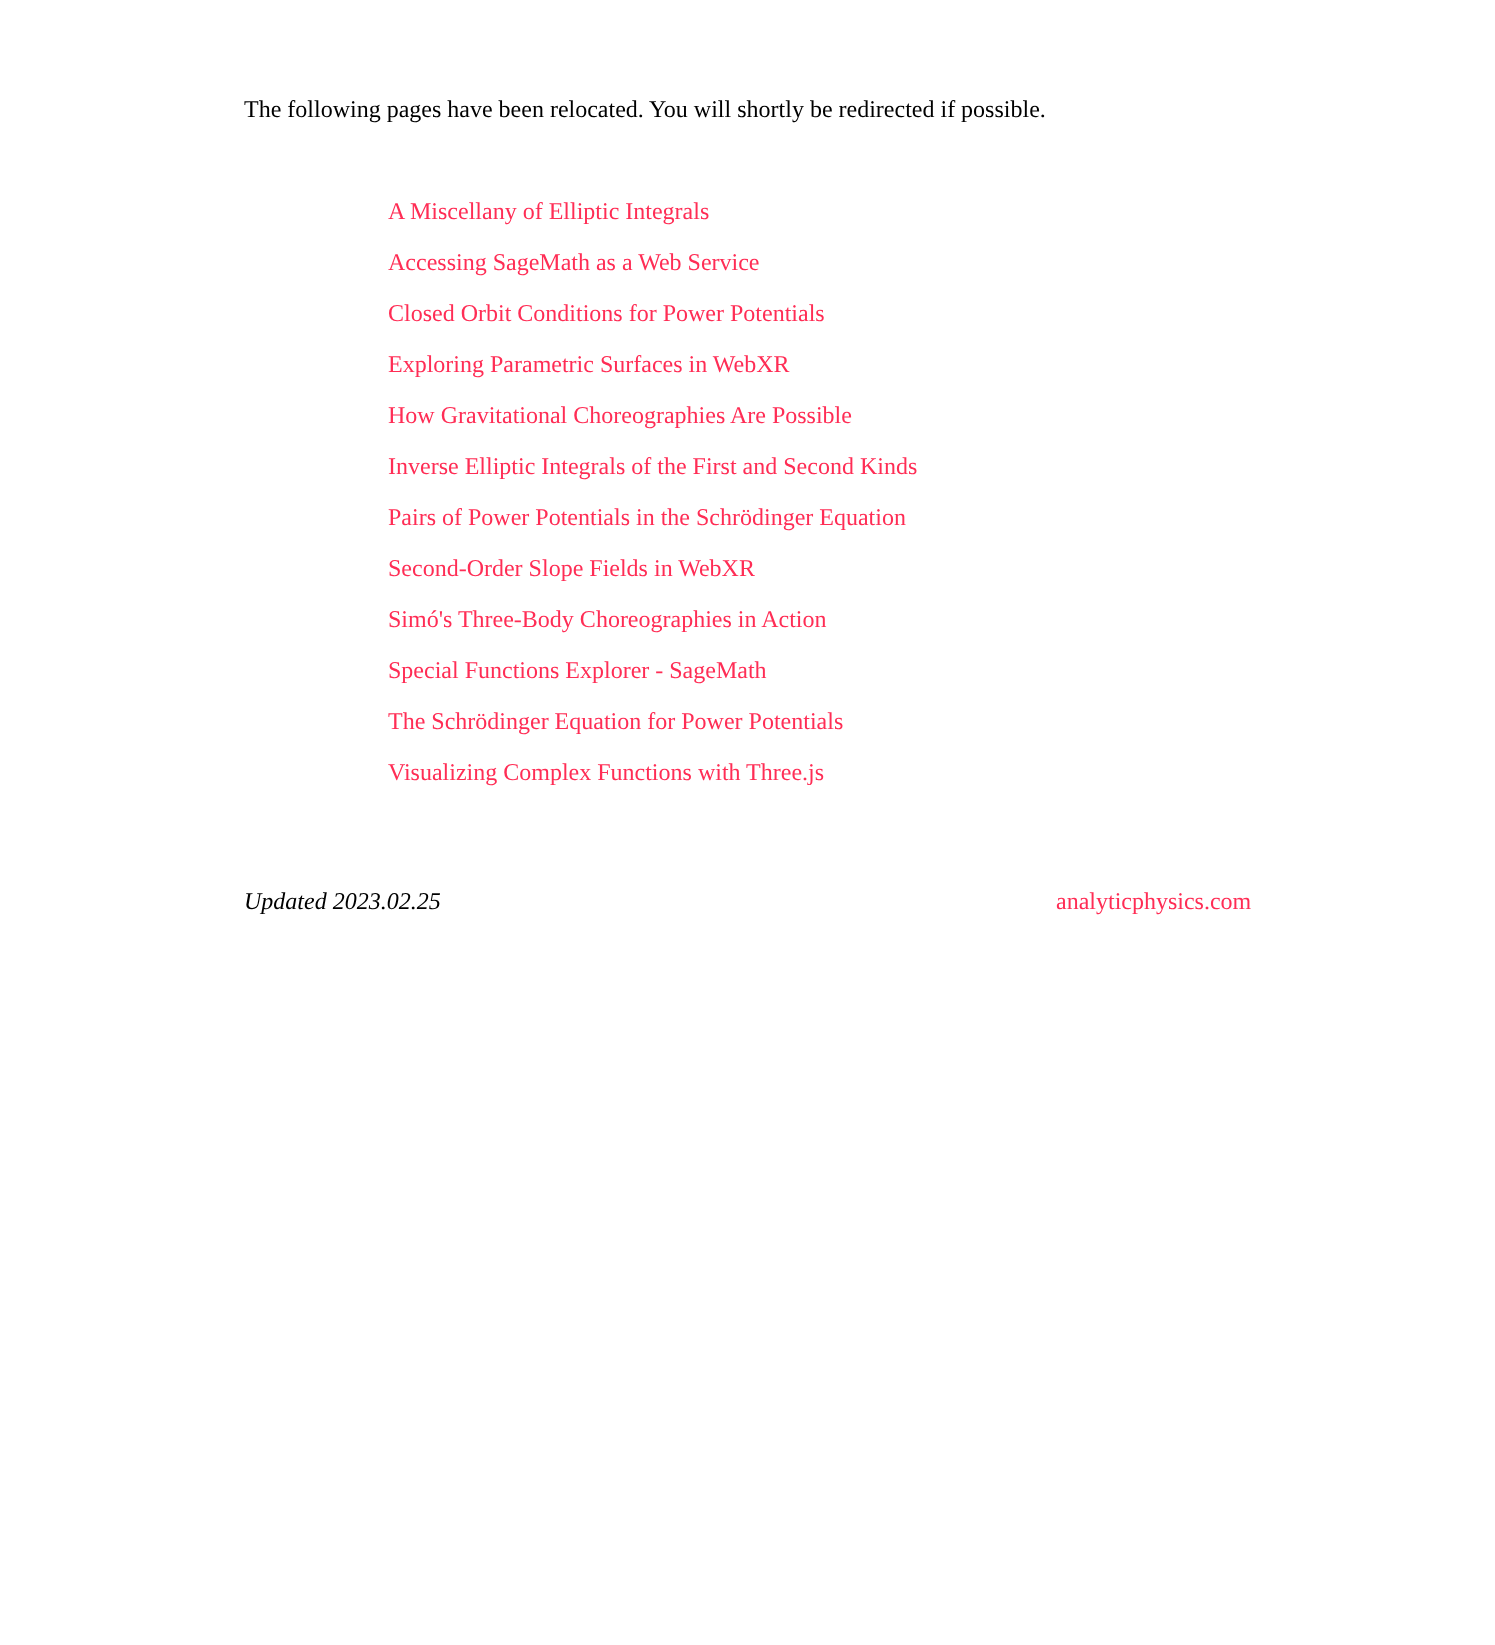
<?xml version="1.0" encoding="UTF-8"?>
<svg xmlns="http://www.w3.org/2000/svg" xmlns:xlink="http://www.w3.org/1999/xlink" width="1495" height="1645">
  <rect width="100%" height="100%" fill="#ffffff" />
  <text x="244" y="117" style="font-family: Liberation Serif; font-size: 24px; fill: #000000">The following pages have been relocated. You will shortly be redirected if possible.</text>
  <text x="388" y="219" style="font-family: Liberation Serif; font-size: 24px; fill: #ff2d55">A Miscellany of Elliptic Integrals</text>
  <text x="388" y="270" style="font-family: Liberation Serif; font-size: 24px; fill: #ff2d55">Accessing SageMath as a Web Service</text>
  <text x="388" y="321" style="font-family: Liberation Serif; font-size: 24px; fill: #ff2d55">Closed Orbit Conditions for Power Potentials</text>
  <text x="388" y="372" style="font-family: Liberation Serif; font-size: 24px; fill: #ff2d55">Exploring Parametric Surfaces in WebXR</text>
  <text x="388" y="423" style="font-family: Liberation Serif; font-size: 24px; fill: #ff2d55">How Gravitational Choreographies Are Possible</text>
  <text x="388" y="474" style="font-family: Liberation Serif; font-size: 24px; fill: #ff2d55">Inverse Elliptic Integrals of the First and Second Kinds</text>
  <text x="388" y="525" style="font-family: Liberation Serif; font-size: 24px; fill: #ff2d55">Pairs of Power Potentials in the Schrödinger Equation</text>
  <text x="388" y="576" style="font-family: Liberation Serif; font-size: 24px; fill: #ff2d55">Second-Order Slope Fields in WebXR</text>
  <text x="388" y="627" style="font-family: Liberation Serif; font-size: 24px; fill: #ff2d55">Simó's Three-Body Choreographies in Action</text>
  <text x="388" y="678" style="font-family: Liberation Serif; font-size: 24px; fill: #ff2d55">Special Functions Explorer - SageMath</text>
  <text x="388" y="729" style="font-family: Liberation Serif; font-size: 24px; fill: #ff2d55">The Schrödinger Equation for Power Potentials</text>
  <text x="388" y="780" style="font-family: Liberation Serif; font-size: 24px; fill: #ff2d55">Visualizing Complex Functions with Three.js</text>
  <text x="244" y="909" style="font-family: Liberation Serif; font-size: 24px; font-style: italic; fill: #000000">Updated 2023.02.25</text>
  <text x="1056" y="909" style="font-family: Liberation Serif; font-size: 24px; fill: #ff2d55">analyticphysics.com</text>
</svg>
